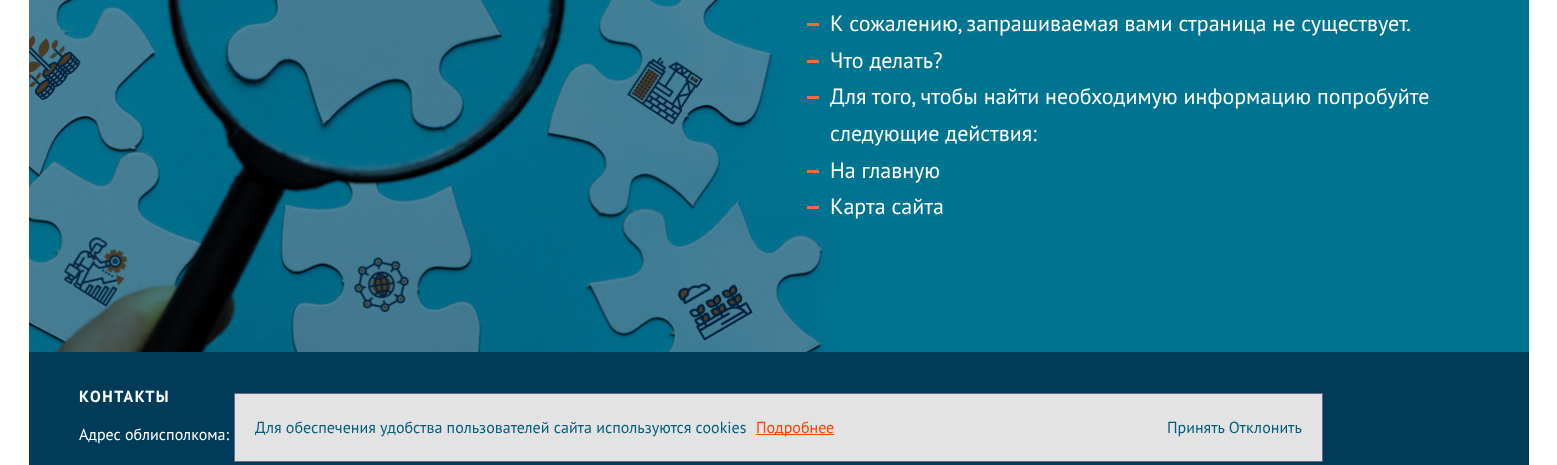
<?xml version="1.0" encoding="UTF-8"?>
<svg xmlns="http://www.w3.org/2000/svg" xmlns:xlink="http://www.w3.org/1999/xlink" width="1557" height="465">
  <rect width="100%" height="100%" fill="#ffffff" />
  <image x="29" y="0" width="1500" height="352" xlink:href="image1.png" />
  <rect x="807" y="23" width="12" height="3" fill="#f56b3e" />
  <rect x="807" y="60" width="12" height="3" fill="#f56b3e" />
  <rect x="807" y="96" width="12" height="3" fill="#f56b3e" />
  <rect x="807" y="170" width="12" height="3" fill="#f56b3e" />
  <rect x="807" y="206" width="12" height="3" fill="#f56b3e" />
  <rect x="29" y="352" width="1500" height="113" fill="#003c5a" />
  <rect x="234.5" y="393.5" width="1088" height="68" fill="#e3e3e3" stroke="#666d7f" />
  <rect x="756" y="434" width="78" height="1" fill="#ff4000" />
  <text x="830" y="31" style="font-family: PT Sans; font-size: 22px; fill: #ffffff">К сожалению, запрашиваемая вами страница не существует.</text>
  <text x="830" y="68" style="font-family: PT Sans; font-size: 22px; fill: #ffffff">Что делать?</text>
  <text x="830" y="104" style="font-family: PT Sans; font-size: 22px; fill: #ffffff">Для того, чтобы найти необходимую информацию попробуйте</text>
  <text x="830" y="141" style="font-family: PT Sans; font-size: 22px; fill: #ffffff">следующие действия:</text>
  <text x="830" y="178" style="font-family: PT Sans; font-size: 22px; fill: #ffffff">На главную</text>
  <text x="830" y="214" style="font-family: PT Sans; font-size: 22px; fill: #ffffff">Карта сайта</text>
  <text x="79" y="402" style="font-family: PT Sans; font-size: 16px; font-weight: bold; letter-spacing: 1.5px; fill: #ffffff">КОНТАКТЫ</text>
  <text x="79" y="440" style="font-family: PT Sans; font-size: 16px; fill: #ffffff">Адрес облисполкома:</text>
  <text x="255" y="433" style="font-family: PT Sans; font-size: 16px; fill: #035d7d">Для обеспечения удобства пользователей сайта используются cookies</text>
  <text x="756" y="433" style="font-family: PT Sans; font-size: 16px; fill: #ff4000">Подробнее</text>
  <text x="1167" y="433" style="font-family: PT Sans; font-size: 16px; fill: #035d7d">Принять Отклонить</text>
</svg>
